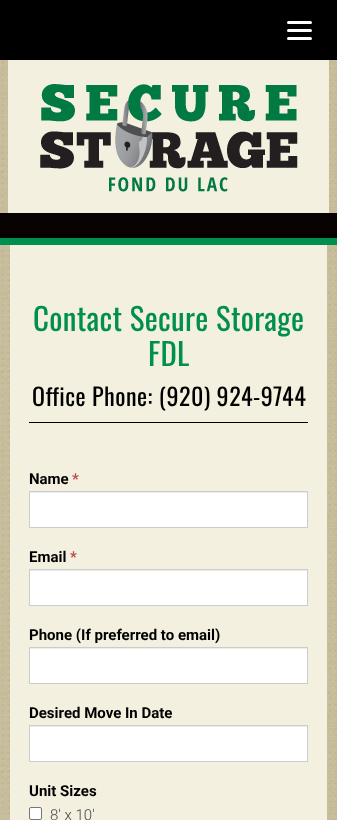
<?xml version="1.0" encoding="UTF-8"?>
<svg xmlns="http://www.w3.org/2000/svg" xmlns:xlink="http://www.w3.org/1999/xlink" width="337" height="820">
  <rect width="100%" height="100%" fill="#ffffff" />
  <image x="0" y="60" width="337" height="760" xlink:href="image1.png" />
  <rect width="337" height="60" fill="#000000" />
  <rect x="287" y="29" width="25" height="3" rx="1.5" fill="#ffffff" />
  <rect x="287" y="21" width="25" height="3" rx="1.5" fill="#ffffff" />
  <rect x="287" y="37" width="25" height="3" rx="1.5" fill="#ffffff" />
  <rect x="8" y="60" width="321" height="153" fill="#f4f0e0" />
  <image x="40" y="84" width="258" height="108" xlink:href="image2.png" />
  <rect y="213" width="337" height="25" fill="#080202" />
  <rect y="238" width="337" height="7" fill="#008f4e" />
  <rect x="10" y="245" width="317" height="575" fill="#f4f0e0" />
  <rect x="29" y="422" width="279" height="1" fill="#000000" />
  <rect x="30" y="493" width="277" height="34" fill="#ffffff" />
  <rect x="30" y="492" width="277" height="1" fill="#ececec" />
  <rect x="29.5" y="491.5" width="278" height="36" fill="none" stroke="#cccccc" />
  <rect x="30" y="571" width="277" height="34" fill="#ffffff" />
  <rect x="30" y="570" width="277" height="1" fill="#ececec" />
  <rect x="29.5" y="569.5" width="278" height="36" fill="none" stroke="#cccccc" />
  <rect x="30" y="649" width="277" height="34" fill="#ffffff" />
  <rect x="30" y="648" width="277" height="1" fill="#ececec" />
  <rect x="29.5" y="647.5" width="278" height="36" fill="none" stroke="#cccccc" />
  <rect x="30" y="727" width="277" height="34" fill="#ffffff" />
  <rect x="30" y="726" width="277" height="1" fill="#ececec" />
  <rect x="29.5" y="725.5" width="278" height="36" fill="none" stroke="#cccccc" />
  <rect x="29.5" y="807.5" width="12" height="12" rx="1.5" fill="#ffffff" stroke="#767676" />
  <text x="33" y="331" style="font-family: Oswald; font-size: 31px; letter-spacing: 0.3px; fill: #008f4e">Contact Secure Storage</text>
  <text x="148" y="366" style="font-family: Oswald; font-size: 31px; letter-spacing: 0.3px; fill: #008f4e">FDL</text>
  <text x="32" y="406" style="font-family: Oswald; font-size: 24px; letter-spacing: 0.5px; fill: #000000">Office Phone: (920) 924-9744</text>
  <text x="29" y="484" style="font-family: Roboto; font-size: 15px; font-weight: bold; fill: #000000">Name</text>
  <text x="72" y="484" style="font-family: Roboto; font-size: 15px; font-weight: bold; fill: #b94a48">*</text>
  <text x="29" y="562" style="font-family: Roboto; font-size: 15px; font-weight: bold; fill: #000000">Email</text>
  <text x="70" y="562" style="font-family: Roboto; font-size: 15px; font-weight: bold; fill: #b94a48">*</text>
  <text x="29" y="640" style="font-family: Roboto; font-size: 15px; font-weight: bold; fill: #000000">Phone (If preferred to email)</text>
  <text x="29" y="718" style="font-family: Roboto; font-size: 15px; font-weight: bold; fill: #000000">Desired Move In Date</text>
  <text x="29" y="796" style="font-family: Roboto; font-size: 15px; font-weight: bold; fill: #000000">Unit Sizes</text>
  <text x="50" y="820" style="font-family: Roboto; font-size: 15px; font-weight: 300; fill: #444444">8' x 10'</text>
</svg>
